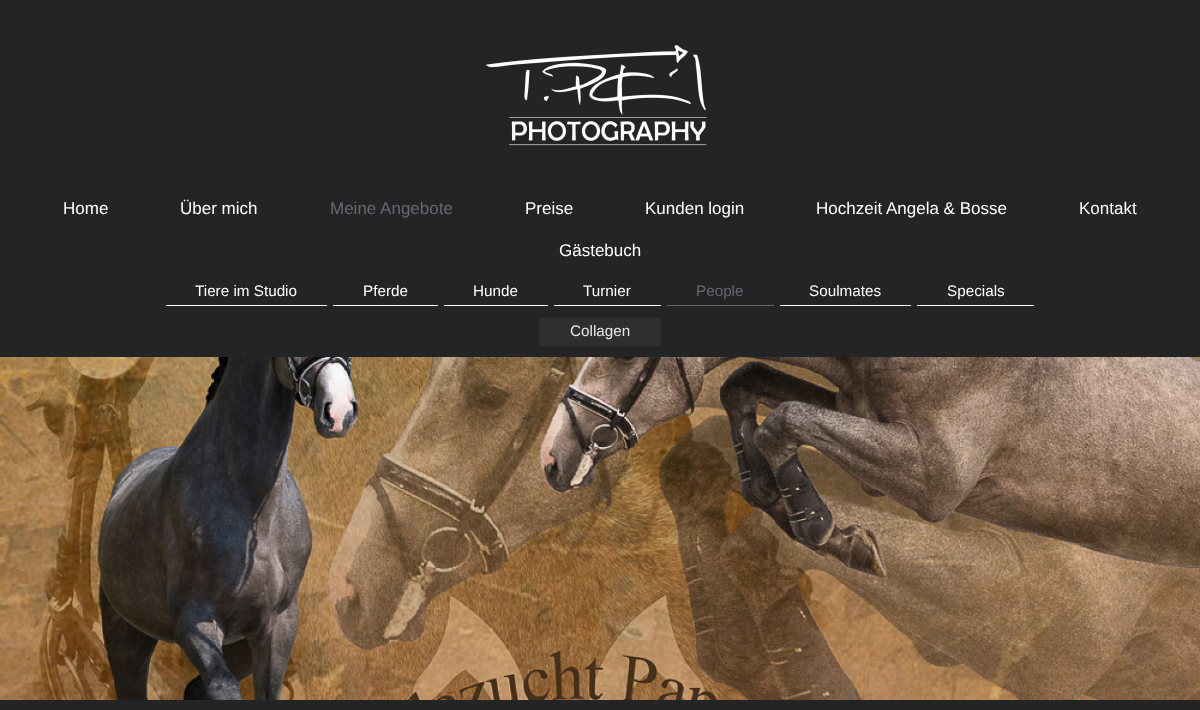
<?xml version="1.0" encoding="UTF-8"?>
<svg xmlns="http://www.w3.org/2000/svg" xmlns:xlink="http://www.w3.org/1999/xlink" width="1200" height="710">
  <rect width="100%" height="100%" fill="#232426" />
  <image x="486" y="45" width="221" height="101" xlink:href="image1.png" />
  <rect x="166" y="305" width="161" height="1" fill="#ffffff" />
  <rect x="333" y="305" width="105" height="1" fill="#ffffff" />
  <rect x="444" y="305" width="104" height="1" fill="#ffffff" />
  <rect x="554" y="305" width="107" height="1" fill="#ffffff" />
  <rect x="667" y="305" width="107" height="1" fill="#65686e" />
  <rect x="780" y="305" width="131" height="1" fill="#ffffff" />
  <rect x="917" y="305" width="117" height="1" fill="#ffffff" />
  <rect x="539" y="318" width="122" height="28" rx="2" fill="#2e2f31" />
  <image x="0" y="357" width="1200" height="343" xlink:href="image2.png" />
  <text x="63" y="214" style="font-family: Liberation Sans; font-size: 17px; fill: #ffffff">Home</text>
  <text x="180" y="214" style="font-family: Liberation Sans; font-size: 17px; fill: #ffffff">Über mich</text>
  <text x="330" y="214" style="font-family: Liberation Sans; font-size: 17px; fill: #65686e">Meine Angebote</text>
  <text x="525" y="214" style="font-family: Liberation Sans; font-size: 17px; fill: #ffffff">Preise</text>
  <text x="645" y="214" style="font-family: Liberation Sans; font-size: 17px; fill: #ffffff">Kunden login</text>
  <text x="816" y="214" style="font-family: Liberation Sans; font-size: 17px; fill: #ffffff">Hochzeit Angela &amp; Bosse</text>
  <text x="1079" y="214" style="font-family: Liberation Sans; font-size: 17px; fill: #ffffff">Kontakt</text>
  <text x="559" y="256" style="font-family: Liberation Sans; font-size: 17px; fill: #ffffff">Gästebuch</text>
  <text x="195" y="296" style="font-family: Liberation Sans; font-size: 15.25px; fill: #ffffff">Tiere im Studio</text>
  <text x="363" y="296" style="font-family: Liberation Sans; font-size: 15.25px; fill: #ffffff">Pferde</text>
  <text x="473" y="296" style="font-family: Liberation Sans; font-size: 15.25px; fill: #ffffff">Hunde</text>
  <text x="583" y="296" style="font-family: Liberation Sans; font-size: 15.25px; fill: #ffffff">Turnier</text>
  <text x="696" y="296" style="font-family: Liberation Sans; font-size: 15.25px; fill: #65686e">People</text>
  <text x="809" y="296" style="font-family: Liberation Sans; font-size: 15.25px; fill: #ffffff">Soulmates</text>
  <text x="947" y="296" style="font-family: Liberation Sans; font-size: 15.25px; fill: #ffffff">Specials</text>
  <text x="570" y="336" style="font-family: Liberation Sans; font-size: 15.25px; fill: #e7e7e7">Collagen</text>
</svg>
